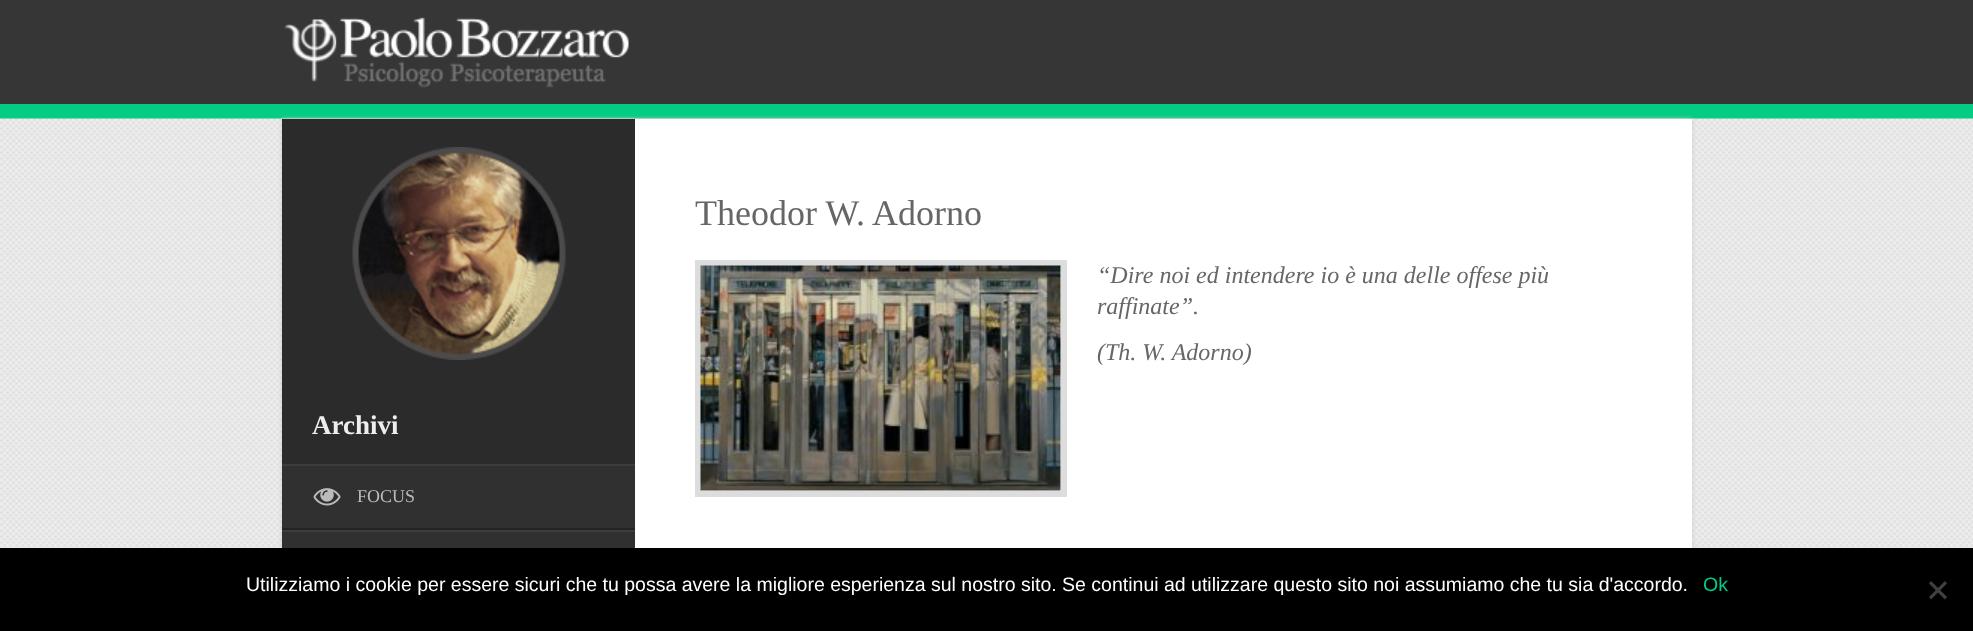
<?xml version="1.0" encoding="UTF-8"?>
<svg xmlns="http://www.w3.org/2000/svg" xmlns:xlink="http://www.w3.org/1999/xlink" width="1973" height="631">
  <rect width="100%" height="100%" fill="#363636" />
  <rect y="104" width="1973" height="15" fill="#03cc85" />
  <image x="284" y="17" width="345" height="71" xlink:href="image1.png" />
  <image x="0" y="118" width="1973" height="430" xlink:href="image2.png" />
  <rect x="282" y="119" width="1410" height="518" fill="#cccccc" filter="blur(2px)" />
  <rect x="635" y="119" width="1057" height="429" fill="#ffffff" />
  <rect x="698" y="263" width="366" height="231" fill="none" stroke="#dddddd" stroke-width="6" />
  <image x="700" y="265" width="361" height="226" xlink:href="image3.png" />
  <rect x="282" y="119" width="353" height="345" fill="#2b2b2b" />
  <image x="352" y="147" width="214" height="213" xlink:href="image4.png" />
  <rect x="282" y="466" width="353" height="62" fill="#303030" />
  <rect x="282" y="464" width="353" height="2" fill="#3c3c3c" />
  <rect x="282" y="528" width="353" height="2" fill="#232323" />
  <image x="313" y="488" width="28" height="18" xlink:href="image5.png" />
  <rect x="282" y="532" width="353" height="16" fill="#303030" />
  <rect x="282" y="530" width="353" height="2" fill="#3c3c3c" />
  <rect y="548" width="1973" height="83" fill="#000000" />
  <path d="M 1945 581 l 2 2.5 l -16 16 l -2 -2.5 z" fill="#404040" />
  <path d="M 1929 583.5 l 2 -2.5 l 16 16 l -2 2.5 z" fill="#404040" />
  <text x="695" y="225" style="font-family: Liberation Serif; font-size: 36px; fill: #666666">Theodor W. Adorno</text>
  <text x="1097" y="283" style="font-family: Liberation Serif; font-size: 24px; font-style: italic; fill: #666666">“Dire noi ed intendere io è una delle offese più</text>
  <text x="1097" y="314" style="font-family: Liberation Serif; font-size: 24px; font-style: italic; fill: #666666">raffinate”.</text>
  <text x="1097" y="360" style="font-family: Liberation Serif; font-size: 24px; font-style: italic; fill: #666666">(Th. W. Adorno)</text>
  <text x="312" y="434" style="font-family: Liberation Serif; font-size: 27px; font-weight: bold; fill: #eeeeee">Archivi</text>
  <text x="357" y="502" style="font-family: Liberation Serif; font-size: 18px; fill: #bbbbbb">FOCUS</text>
  <text x="246" y="591" style="font-family: Liberation Sans; font-size: 19.5px; fill: #ffffff">Utilizziamo i cookie per essere sicuri che tu possa avere la migliore esperienza sul nostro sito. Se continui ad utilizzare questo sito noi assumiamo che tu sia d'accordo.</text>
  <text x="1703" y="591" style="font-family: Liberation Sans; font-size: 19.5px; fill: #03cc85">Ok</text>
</svg>
